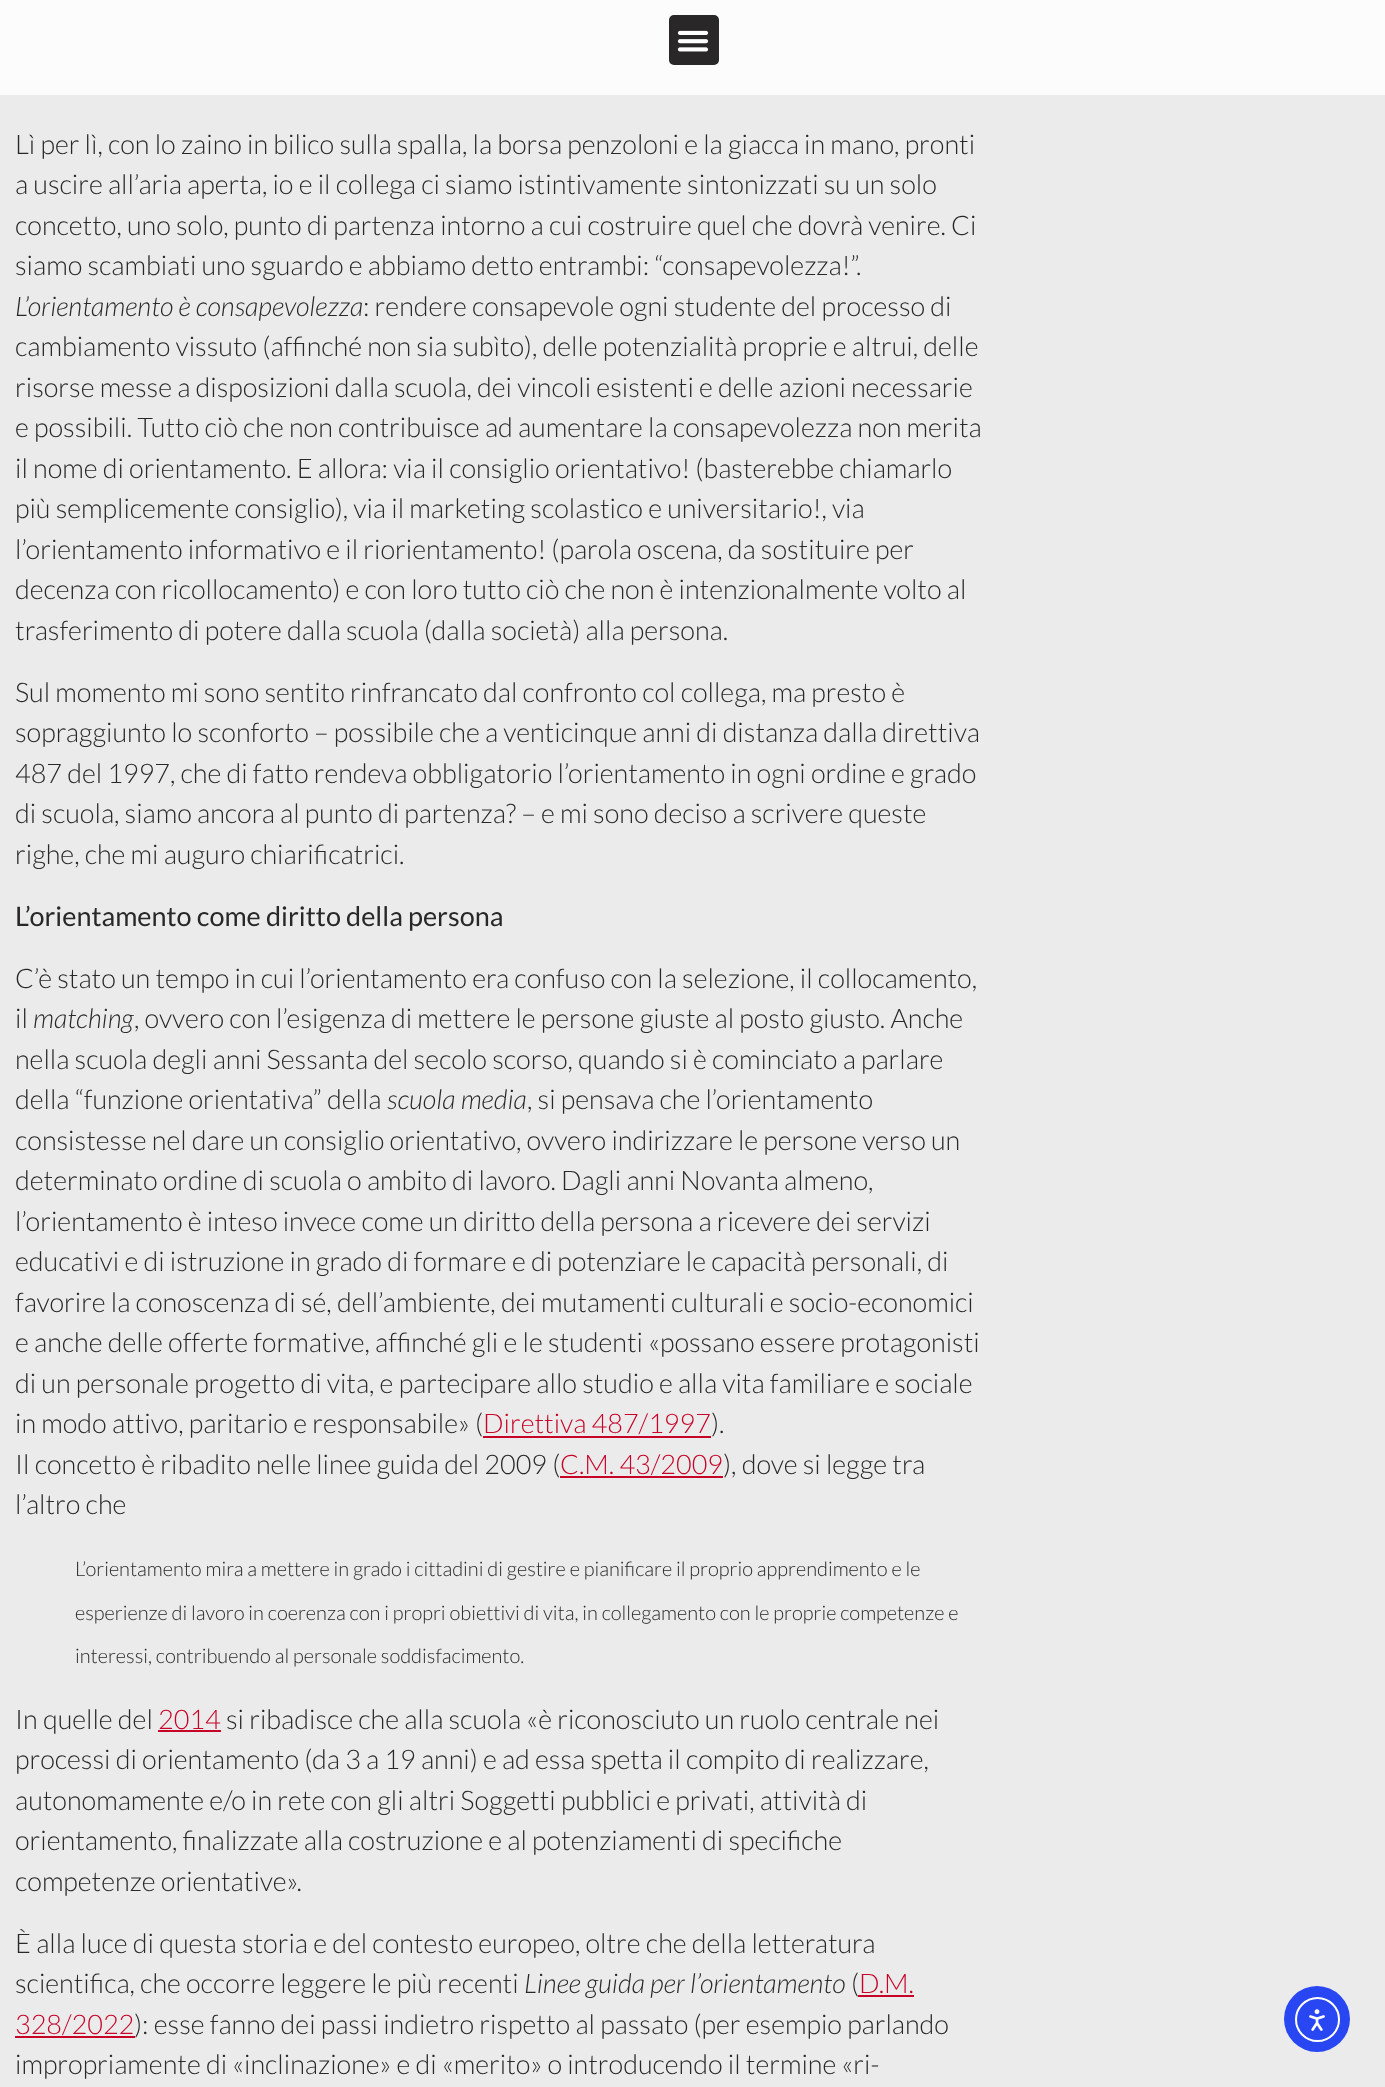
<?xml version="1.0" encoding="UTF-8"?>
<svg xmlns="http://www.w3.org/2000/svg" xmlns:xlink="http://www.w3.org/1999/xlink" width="1385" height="2087">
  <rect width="100%" height="100%" fill="#ebebeb" />
  <rect width="1385" height="95" fill="#ffffff" fill-opacity="0.85" />
  <rect x="669" y="15" width="50" height="50" rx="5" fill="#292727" />
  <image x="677" y="30" width="32" height="22" xlink:href="image1.png" />
  <rect x="483" y="1436" width="228" height="2" fill="#c70428" />
  <rect x="560" y="1476" width="163" height="2" fill="#c70428" />
  <rect x="158" y="1730" width="63" height="2" fill="#c70428" />
  <rect x="858" y="1995" width="56" height="2" fill="#c70428" />
  <rect x="15" y="2036" width="120" height="2" fill="#c70428" />
  <circle cx="1317" cy="2019" r="33" fill="#2847f3" />
  <circle cx="1317.5" cy="2019.5" r="21.5" fill="none" stroke="#ffffff" stroke-width="2" />
  <image x="1309" y="2009" width="16" height="22" xlink:href="image2.png" />
  <text x="15" y="154" style="font-family: Lato; font-size: 27px; font-weight: 300; fill: #292727">Lì per lì, con lo zaino in bilico sulla spalla, la borsa penzoloni e la giacca in mano, pronti</text>
  <text x="15" y="194" style="font-family: Lato; font-size: 27px; font-weight: 300; fill: #292727">a uscire all’aria aperta, io e il collega ci siamo istintivamente sintonizzati su un solo</text>
  <text x="15" y="235" style="font-family: Lato; font-size: 27px; font-weight: 300; fill: #292727">concetto, uno solo, punto di partenza intorno a cui costruire quel che dovrà venire. Ci</text>
  <text x="15" y="275" style="font-family: Lato; font-size: 27px; font-weight: 300; fill: #292727">siamo scambiati uno sguardo e abbiamo detto entrambi: “consapevolezza!”.</text>
  <text x="15" y="316" style="font-family: Lato; font-size: 27px; font-weight: 300; font-style: italic; fill: #292727">L’orientamento è consapevolezza</text>
  <text x="363" y="316" style="font-family: Lato; font-size: 27px; font-weight: 300; fill: #292727">: rendere consapevole ogni studente del processo di</text>
  <text x="15" y="356" style="font-family: Lato; font-size: 27px; font-weight: 300; fill: #292727">cambiamento vissuto (affinché non sia subìto), delle potenzialità proprie e altrui, delle</text>
  <text x="15" y="397" style="font-family: Lato; font-size: 27px; font-weight: 300; fill: #292727">risorse messe a disposizioni dalla scuola, dei vincoli esistenti e delle azioni necessarie</text>
  <text x="15" y="437" style="font-family: Lato; font-size: 27px; font-weight: 300; fill: #292727">e possibili. Tutto ciò che non contribuisce ad aumentare la consapevolezza non merita</text>
  <text x="15" y="478" style="font-family: Lato; font-size: 27px; font-weight: 300; fill: #292727">il nome di orientamento. E allora: via il consiglio orientativo! (basterebbe chiamarlo</text>
  <text x="15" y="518" style="font-family: Lato; font-size: 27px; font-weight: 300; fill: #292727">più semplicemente consiglio), via il marketing scolastico e universitario!, via</text>
  <text x="15" y="559" style="font-family: Lato; font-size: 27px; font-weight: 300; fill: #292727">l’orientamento informativo e il riorientamento! (parola oscena, da sostituire per</text>
  <text x="15" y="599" style="font-family: Lato; font-size: 27px; font-weight: 300; fill: #292727">decenza con ricollocamento) e con loro tutto ciò che non è intenzionalmente volto al</text>
  <text x="15" y="640" style="font-family: Lato; font-size: 27px; font-weight: 300; fill: #292727">trasferimento di potere dalla scuola (dalla società) alla persona.</text>
  <text x="15" y="702" style="font-family: Lato; font-size: 27px; font-weight: 300; fill: #292727">Sul momento mi sono sentito rinfrancato dal confronto col collega, ma presto è</text>
  <text x="15" y="742" style="font-family: Lato; font-size: 27px; font-weight: 300; fill: #292727">sopraggiunto lo sconforto – possibile che a venticinque anni di distanza dalla direttiva</text>
  <text x="15" y="783" style="font-family: Lato; font-size: 27px; font-weight: 300; fill: #292727">487 del 1997, che di fatto rendeva obbligatorio l’orientamento in ogni ordine e grado</text>
  <text x="15" y="823" style="font-family: Lato; font-size: 27px; font-weight: 300; fill: #292727">di scuola, siamo ancora al punto di partenza? – e mi sono deciso a scrivere queste</text>
  <text x="15" y="864" style="font-family: Lato; font-size: 27px; font-weight: 300; fill: #292727">righe, che mi auguro chiarificatrici.</text>
  <text x="15" y="926" style="font-family: Lato; font-size: 27px; fill: #292727">L’orientamento come diritto della persona</text>
  <text x="15" y="988" style="font-family: Lato; font-size: 27px; font-weight: 300; fill: #292727">C’è stato un tempo in cui l’orientamento era confuso con la selezione, il collocamento,</text>
  <text x="15" y="1028" style="font-family: Lato; font-size: 27px; font-weight: 300; fill: #292727">il</text>
  <text x="33" y="1028" style="font-family: Lato; font-size: 27px; font-weight: 300; font-style: italic; fill: #292727">matching</text>
  <text x="134" y="1028" style="font-family: Lato; font-size: 27px; font-weight: 300; fill: #292727">, ovvero con l’esigenza di mettere le persone giuste al posto giusto. Anche</text>
  <text x="15" y="1069" style="font-family: Lato; font-size: 27px; font-weight: 300; fill: #292727">nella scuola degli anni Sessanta del secolo scorso, quando si è cominciato a parlare</text>
  <text x="15" y="1109" style="font-family: Lato; font-size: 27px; font-weight: 300; fill: #292727">della “funzione orientativa” della</text>
  <text x="387" y="1109" style="font-family: Lato; font-size: 27px; font-weight: 300; font-style: italic; fill: #292727">scuola media</text>
  <text x="527" y="1109" style="font-family: Lato; font-size: 27px; font-weight: 300; fill: #292727">, si pensava che l’orientamento</text>
  <text x="15" y="1150" style="font-family: Lato; font-size: 27px; font-weight: 300; fill: #292727">consistesse nel dare un consiglio orientativo, ovvero indirizzare le persone verso un</text>
  <text x="15" y="1190" style="font-family: Lato; font-size: 27px; font-weight: 300; fill: #292727">determinato ordine di scuola o ambito di lavoro. Dagli anni Novanta almeno,</text>
  <text x="15" y="1231" style="font-family: Lato; font-size: 27px; font-weight: 300; fill: #292727">l’orientamento è inteso invece come un diritto della persona a ricevere dei servizi</text>
  <text x="15" y="1271" style="font-family: Lato; font-size: 27px; font-weight: 300; fill: #292727">educativi e di istruzione in grado di formare e di potenziare le capacità personali, di</text>
  <text x="15" y="1312" style="font-family: Lato; font-size: 27px; font-weight: 300; fill: #292727">favorire la conoscenza di sé, dell’ambiente, dei mutamenti culturali e socio-economici</text>
  <text x="15" y="1352" style="font-family: Lato; font-size: 27px; font-weight: 300; fill: #292727">e anche delle offerte formative, affinché gli e le studenti «possano essere protagonisti</text>
  <text x="15" y="1393" style="font-family: Lato; font-size: 27px; font-weight: 300; fill: #292727">di un personale progetto di vita, e partecipare allo studio e alla vita familiare e sociale</text>
  <text x="15" y="1433" style="font-family: Lato; font-size: 27px; font-weight: 300; fill: #292727">in modo attivo, paritario e responsabile» (</text>
  <text x="483" y="1433" style="font-family: Lato; font-size: 27px; font-weight: 300; fill: #c70428">Direttiva 487/1997</text>
  <text x="711" y="1433" style="font-family: Lato; font-size: 27px; font-weight: 300; fill: #292727">).</text>
  <text x="15" y="1474" style="font-family: Lato; font-size: 27px; font-weight: 300; fill: #292727">Il concetto è ribadito nelle linee guida del 2009 (</text>
  <text x="560" y="1474" style="font-family: Lato; font-size: 27px; font-weight: 300; fill: #c70428">C.M. 43/2009</text>
  <text x="723" y="1474" style="font-family: Lato; font-size: 27px; font-weight: 300; fill: #292727">), dove si legge tra</text>
  <text x="15" y="1514" style="font-family: Lato; font-size: 27px; font-weight: 300; fill: #292727">l’altro che</text>
  <text x="75" y="1576" style="font-family: Lato; font-size: 20px; font-weight: 300; fill: #292727">L’orientamento mira a mettere in grado i cittadini di gestire e pianificare il proprio apprendimento e le</text>
  <text x="75" y="1620" style="font-family: Lato; font-size: 20px; font-weight: 300; fill: #292727">esperienze di lavoro in coerenza con i propri obiettivi di vita, in collegamento con le proprie competenze e</text>
  <text x="75" y="1663" style="font-family: Lato; font-size: 20px; font-weight: 300; fill: #292727">interessi, contribuendo al personale soddisfacimento.</text>
  <text x="15" y="1729" style="font-family: Lato; font-size: 27px; font-weight: 300; fill: #292727">In quelle del</text>
  <text x="158" y="1729" style="font-family: Lato; font-size: 27px; font-weight: 300; fill: #c70428">2014</text>
  <text x="226" y="1729" style="font-family: Lato; font-size: 27px; font-weight: 300; fill: #292727">si ribadisce che alla scuola «è riconosciuto un ruolo centrale nei</text>
  <text x="15" y="1769" style="font-family: Lato; font-size: 27px; font-weight: 300; fill: #292727">processi di orientamento (da 3 a 19 anni) e ad essa spetta il compito di realizzare,</text>
  <text x="15" y="1810" style="font-family: Lato; font-size: 27px; font-weight: 300; fill: #292727">autonomamente e/o in rete con gli altri Soggetti pubblici e privati, attività di</text>
  <text x="15" y="1850" style="font-family: Lato; font-size: 27px; font-weight: 300; fill: #292727">orientamento, finalizzate alla costruzione e al potenziamenti di specifiche</text>
  <text x="15" y="1891" style="font-family: Lato; font-size: 27px; font-weight: 300; fill: #292727">competenze orientative».</text>
  <text x="15" y="1953" style="font-family: Lato; font-size: 27px; font-weight: 300; fill: #292727">È alla luce di questa storia e del contesto europeo, oltre che della letteratura</text>
  <text x="15" y="1993" style="font-family: Lato; font-size: 27px; font-weight: 300; fill: #292727">scientifica, che occorre leggere le più recenti</text>
  <text x="524" y="1993" style="font-family: Lato; font-size: 27px; font-weight: 300; font-style: italic; fill: #292727">Linee guida per l’orientamento</text>
  <text x="851" y="1993" style="font-family: Lato; font-size: 27px; font-weight: 300; fill: #292727">(</text>
  <text x="859" y="1993" style="font-family: Lato; font-size: 27px; font-weight: 300; fill: #c70428">D.M.</text>
  <text x="15" y="2034" style="font-family: Lato; font-size: 27px; font-weight: 300; fill: #c70428">328/2022</text>
  <text x="134" y="2034" style="font-family: Lato; font-size: 27px; font-weight: 300; fill: #292727">): esse fanno dei passi indietro rispetto al passato (per esempio parlando</text>
  <text x="15" y="2074" style="font-family: Lato; font-size: 27px; font-weight: 300; fill: #292727">impropriamente di «inclinazione» e di «merito» o introducendo il termine «ri-</text>
</svg>
